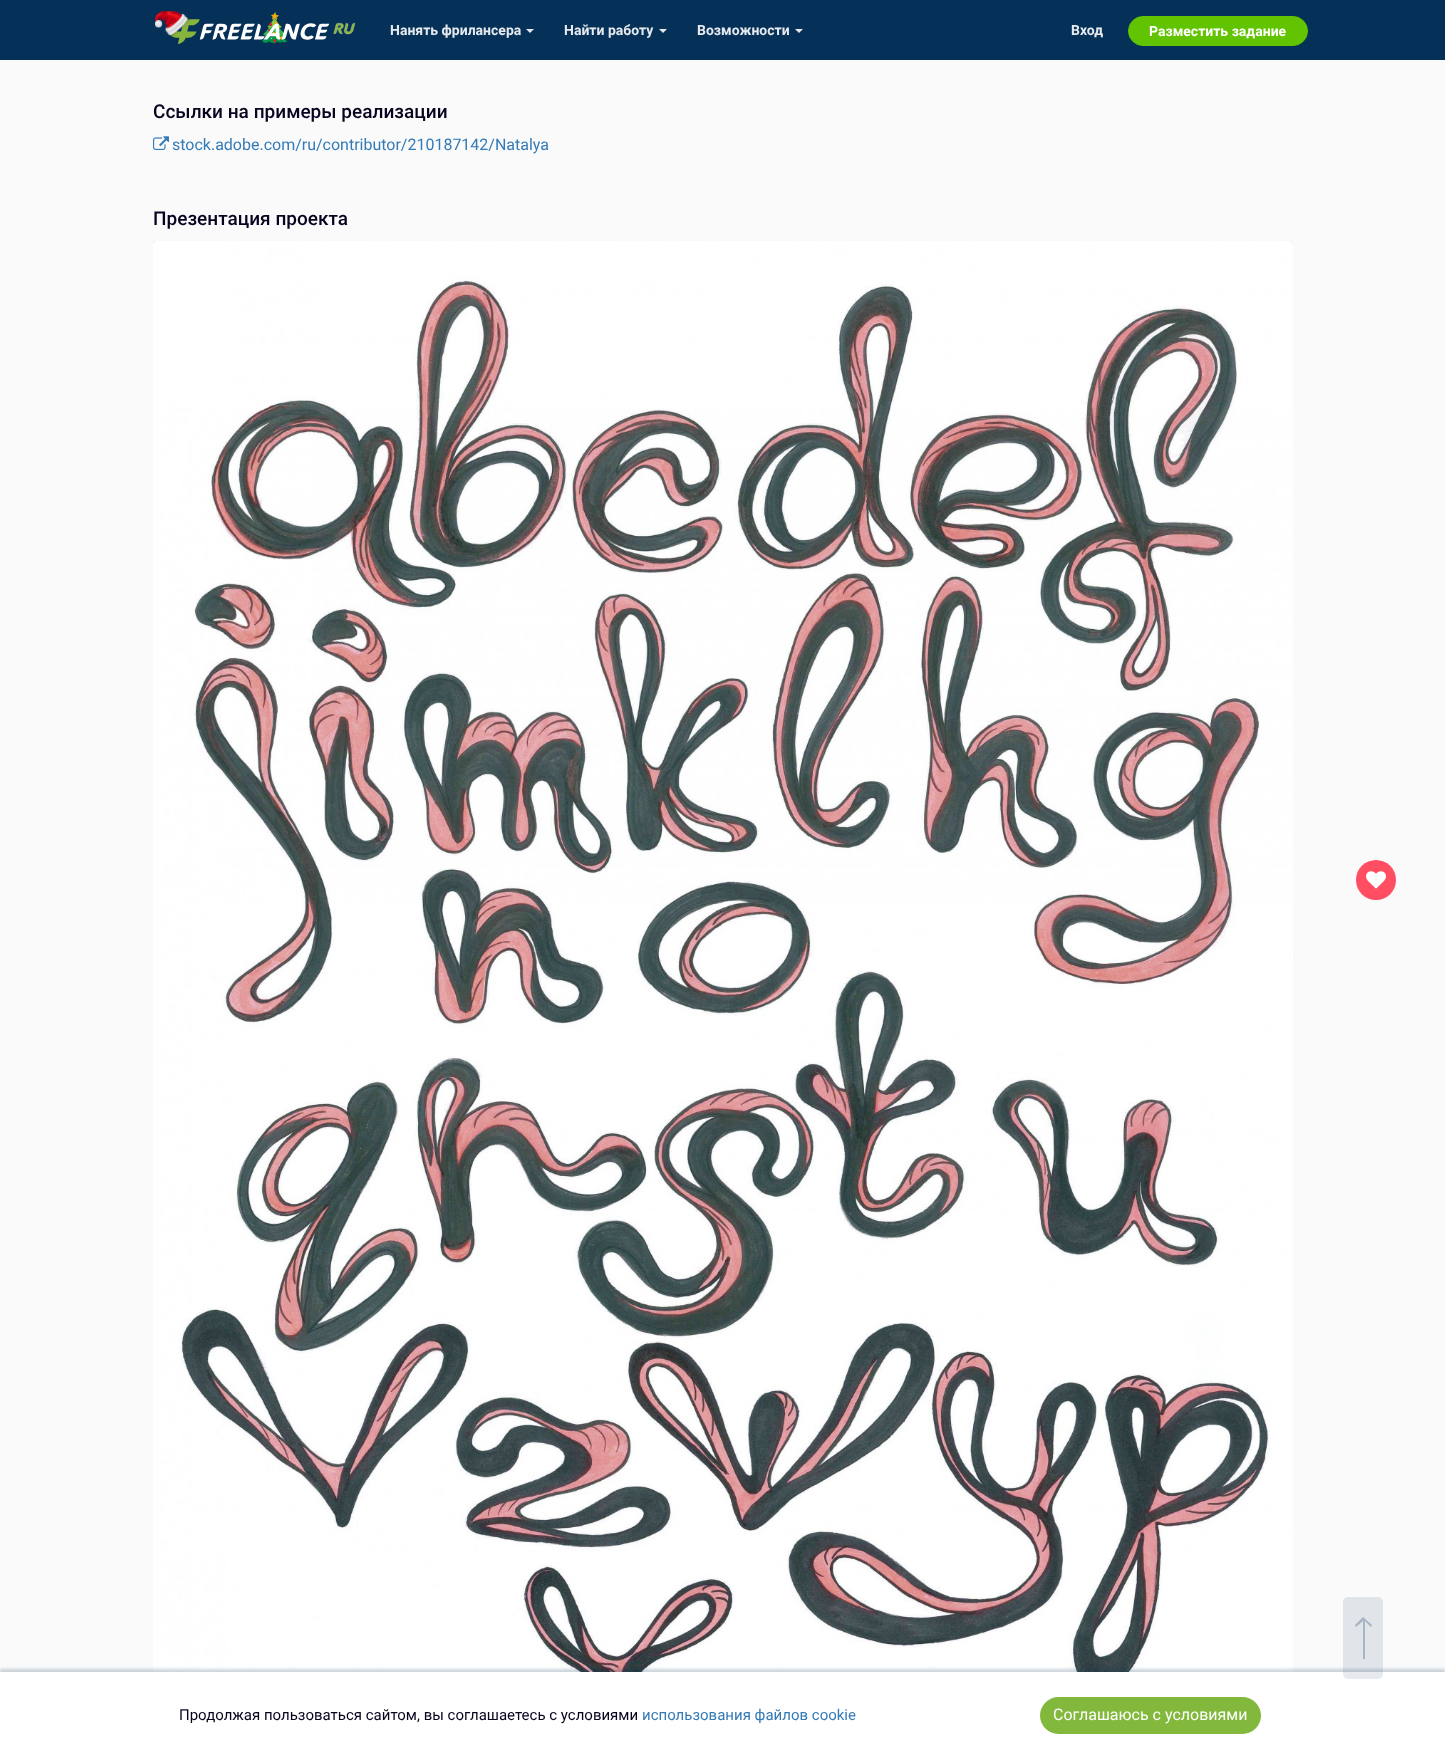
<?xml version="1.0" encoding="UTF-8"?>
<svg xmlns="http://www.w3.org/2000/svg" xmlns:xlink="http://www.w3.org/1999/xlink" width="1445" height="1759">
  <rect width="100%" height="100%" fill="#fafafa" />
  <rect width="1445" height="60" fill="#053159" />
  <image x="155" y="11" width="200" height="33" xlink:href="image1.png" />
  <path d="M 526 29 h 8 l -4 4 z" fill="#e6eaee" />
  <path d="M 659 29 h 8 l -4 4 z" fill="#e6eaee" />
  <path d="M 795 29 h 8 l -4 4 z" fill="#e6eaee" />
  <rect x="1128.5" y="16.5" width="179" height="29" rx="14.5" fill="#62c300" stroke="#62c300" />
  <image x="153" y="136" width="16" height="14" xlink:href="image2.png" />
  <rect x="153" y="241" width="1140" height="5" fill="#eef8e4" />
  <image x="153" y="241" width="1140" height="1431" xlink:href="image3.png" />
  <circle cx="1376" cy="880" r="20" fill="#ff4d62" />
  <image x="1366" y="871" width="20" height="18" xlink:href="image4.png" />
  <rect y="1669" width="1445" height="87" fill="#053159" fill-opacity="0.2" filter="blur(1.5px)" />
  <rect y="1672" width="1445" height="87" fill="#ffffff" />
  <rect x="1343" y="1597" width="40" height="82" rx="5" fill="#053159" fill-opacity="0.1" />
  <path d="M 1362 1618 l 1 -1 l 9 8 l -1 2 l -6 -6 v 38 h -2 v -38 l -7 6 l -1 -2 z" fill="#a7b6c4" fill-rule="evenodd" />
  <rect x="1040" y="1697" width="221" height="37" rx="18.5" fill="#82b93c" />
  <text x="390" y="35" style="font-family: Roboto; font-size: 14px; font-weight: bold; fill: #e6eaee">Нанять фрилансера</text>
  <text x="564" y="35" style="font-family: Roboto; font-size: 14px; font-weight: bold; fill: #e6eaee">Найти работу</text>
  <text x="697" y="35" style="font-family: Roboto; font-size: 14px; font-weight: bold; fill: #e6eaee">Возможности</text>
  <text x="1071" y="35" style="font-family: Roboto; font-size: 14px; font-weight: bold; fill: #e6eaee">Вход</text>
  <text x="1149" y="36" style="font-family: Roboto; font-size: 14px; font-weight: bold; fill: #ffffff">Разместить задание</text>
  <text x="153" y="118" style="font-family: Roboto; font-size: 19px; font-weight: 500; fill: #06041f">Ссылки на примеры реализации</text>
  <text x="172" y="150" style="font-family: Roboto; font-size: 16px; fill: #337ab7">stock.adobe.com/ru/contributor/210187142/Natalya</text>
  <text x="153" y="225" style="font-family: Roboto; font-size: 19px; font-weight: 500; fill: #06041f">Презентация проекта</text>
  <text x="179" y="1720" style="font-family: Roboto; font-size: 15px; fill: #06041f">Продолжая пользоваться сайтом, вы соглашаетесь с условиями</text>
  <text x="642" y="1720" style="font-family: Roboto; font-size: 15px; fill: #337ab7">использования файлов cookie</text>
  <text x="1053" y="1720" style="font-family: Roboto; font-size: 16px; fill: #ffffff">Соглашаюсь с условиями</text>
</svg>
